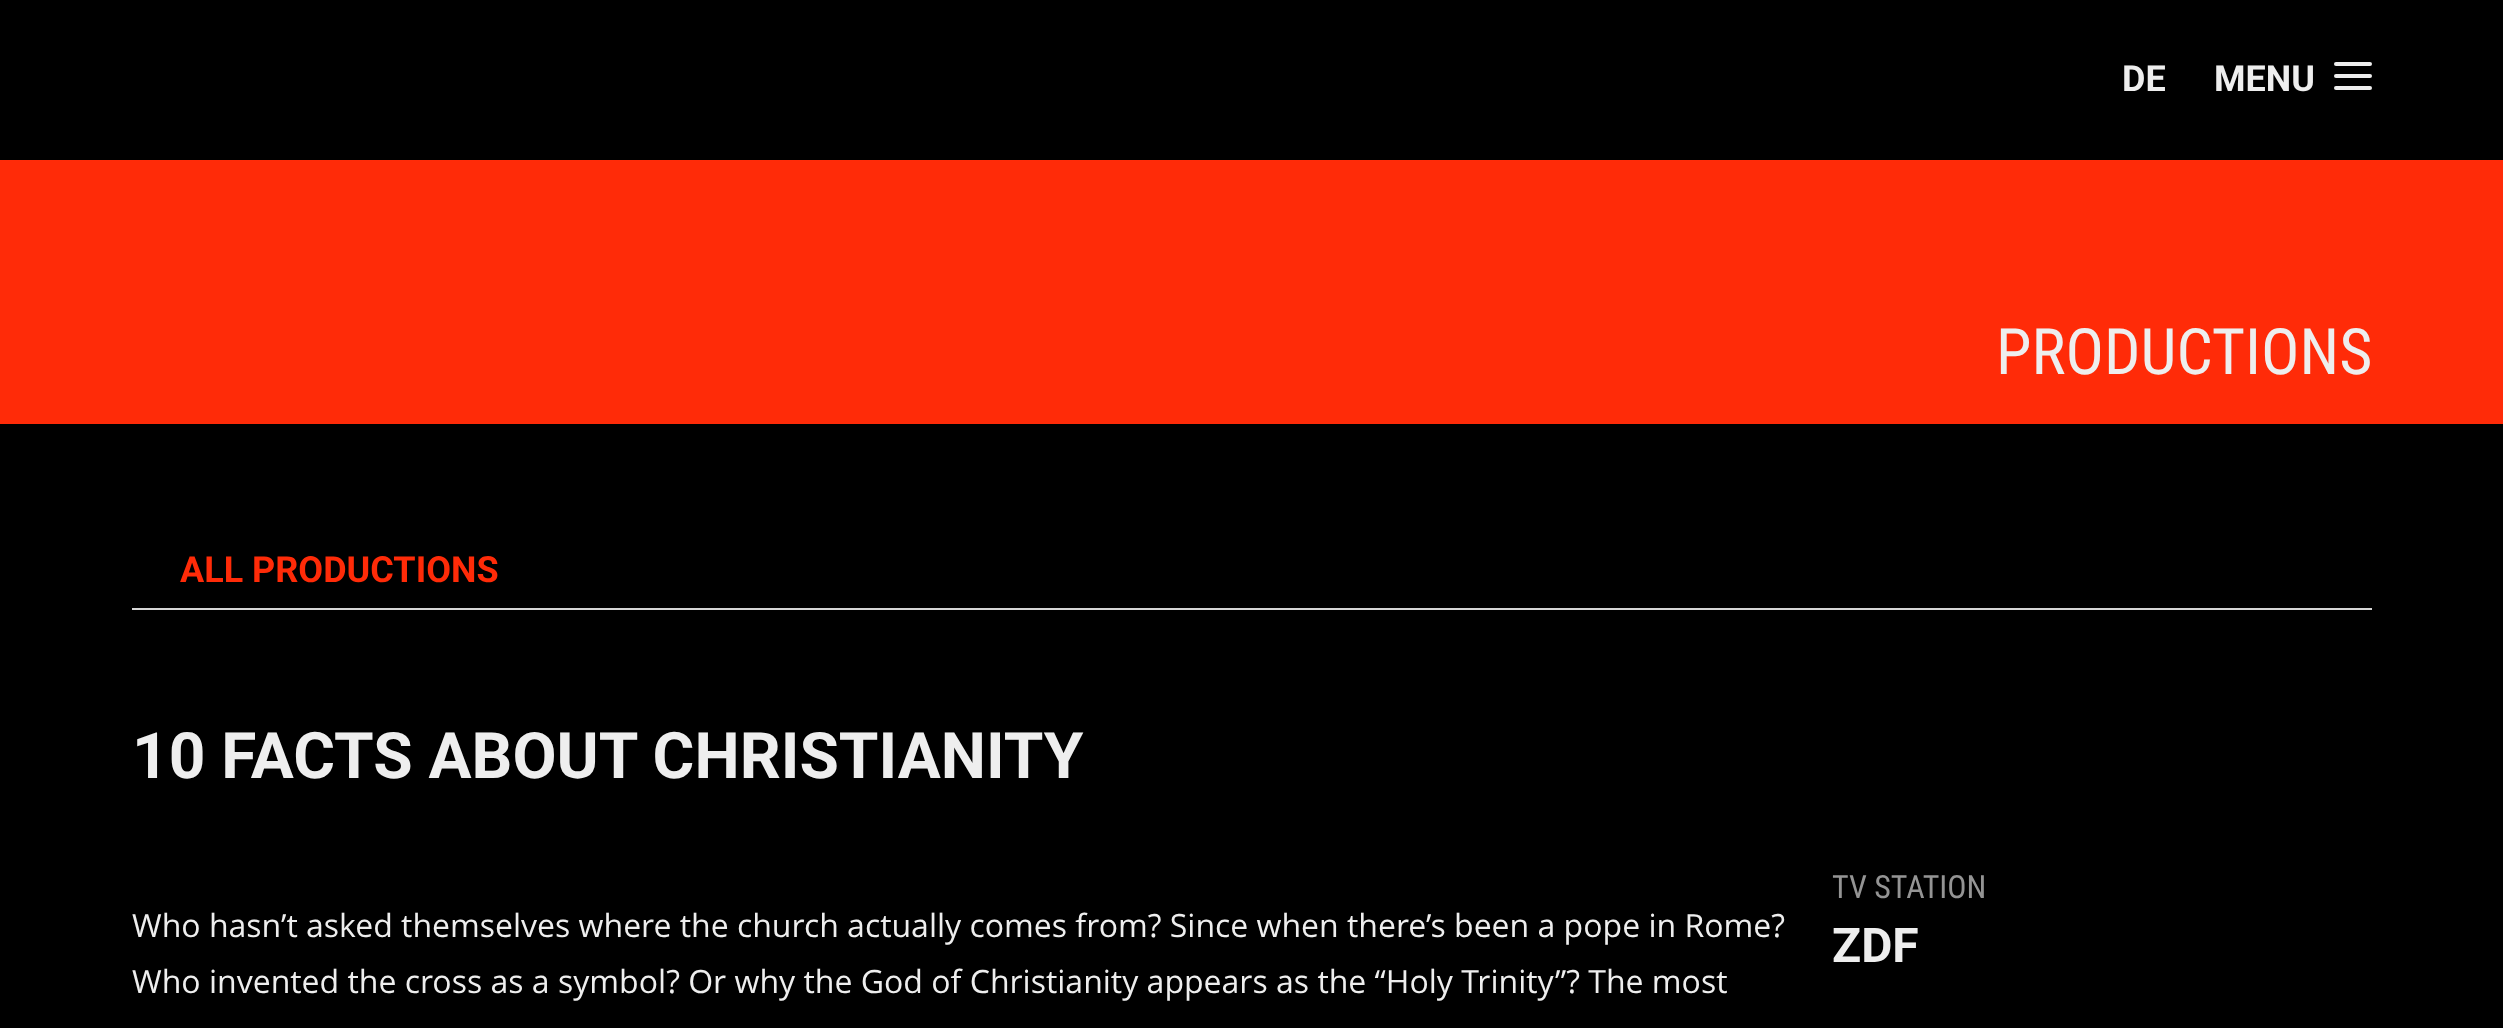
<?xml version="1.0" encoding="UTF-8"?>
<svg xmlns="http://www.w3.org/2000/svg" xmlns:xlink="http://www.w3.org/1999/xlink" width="2503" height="1028">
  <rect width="100%" height="100%" fill="#000000" />
  <rect x="2334" y="74" width="38" height="4" rx="2" fill="#eeeeee" />
  <rect x="2334" y="62" width="38" height="4" rx="2" fill="#eeeeee" />
  <rect x="2334" y="86" width="38" height="4" rx="2" fill="#eeeeee" />
  <rect y="160" width="2503" height="264" fill="#ff2b08" />
  <rect x="132" y="608" width="2240" height="2" fill="#d6d6d6" />
  <text x="2122" y="91" style="font-family: Roboto; font-size: 36px; font-weight: bold; fill: #eeeeee">DE</text>
  <text x="2214" y="91" style="font-family: Roboto; font-size: 36px; font-weight: bold; fill: #eeeeee">MENU</text>
  <text x="1996" y="374" style="font-family: Roboto Condensed; font-size: 64px; fill: #eeeeee">PRODUCTIONS</text>
  <text x="180" y="582" style="font-family: Roboto; font-size: 36px; font-weight: bold; fill: #ff2b08">ALL PRODUCTIONS</text>
  <text x="132" y="778" style="font-family: Roboto; font-size: 64px; font-weight: bold; fill: #eeeeee">10 FACTS ABOUT CHRISTIANITY</text>
  <text x="132" y="937" style="font-family: Open Sans; font-size: 32px; fill: #eeeeee">Who hasn’t asked themselves where the church actually comes from? Since when there’s been a pope in Rome?</text>
  <text x="132" y="993" style="font-family: Open Sans; font-size: 32px; fill: #eeeeee">Who invented the cross as a symbol? Or why the God of Christianity appears as the “Holy Trinity”? The most</text>
  <text x="1832" y="898" style="font-family: Roboto Condensed; font-size: 32px; fill: #949494">TV STATION</text>
  <text x="1832" y="962" style="font-family: Roboto; font-size: 48px; font-weight: bold; fill: #eeeeee">ZDF</text>
</svg>
